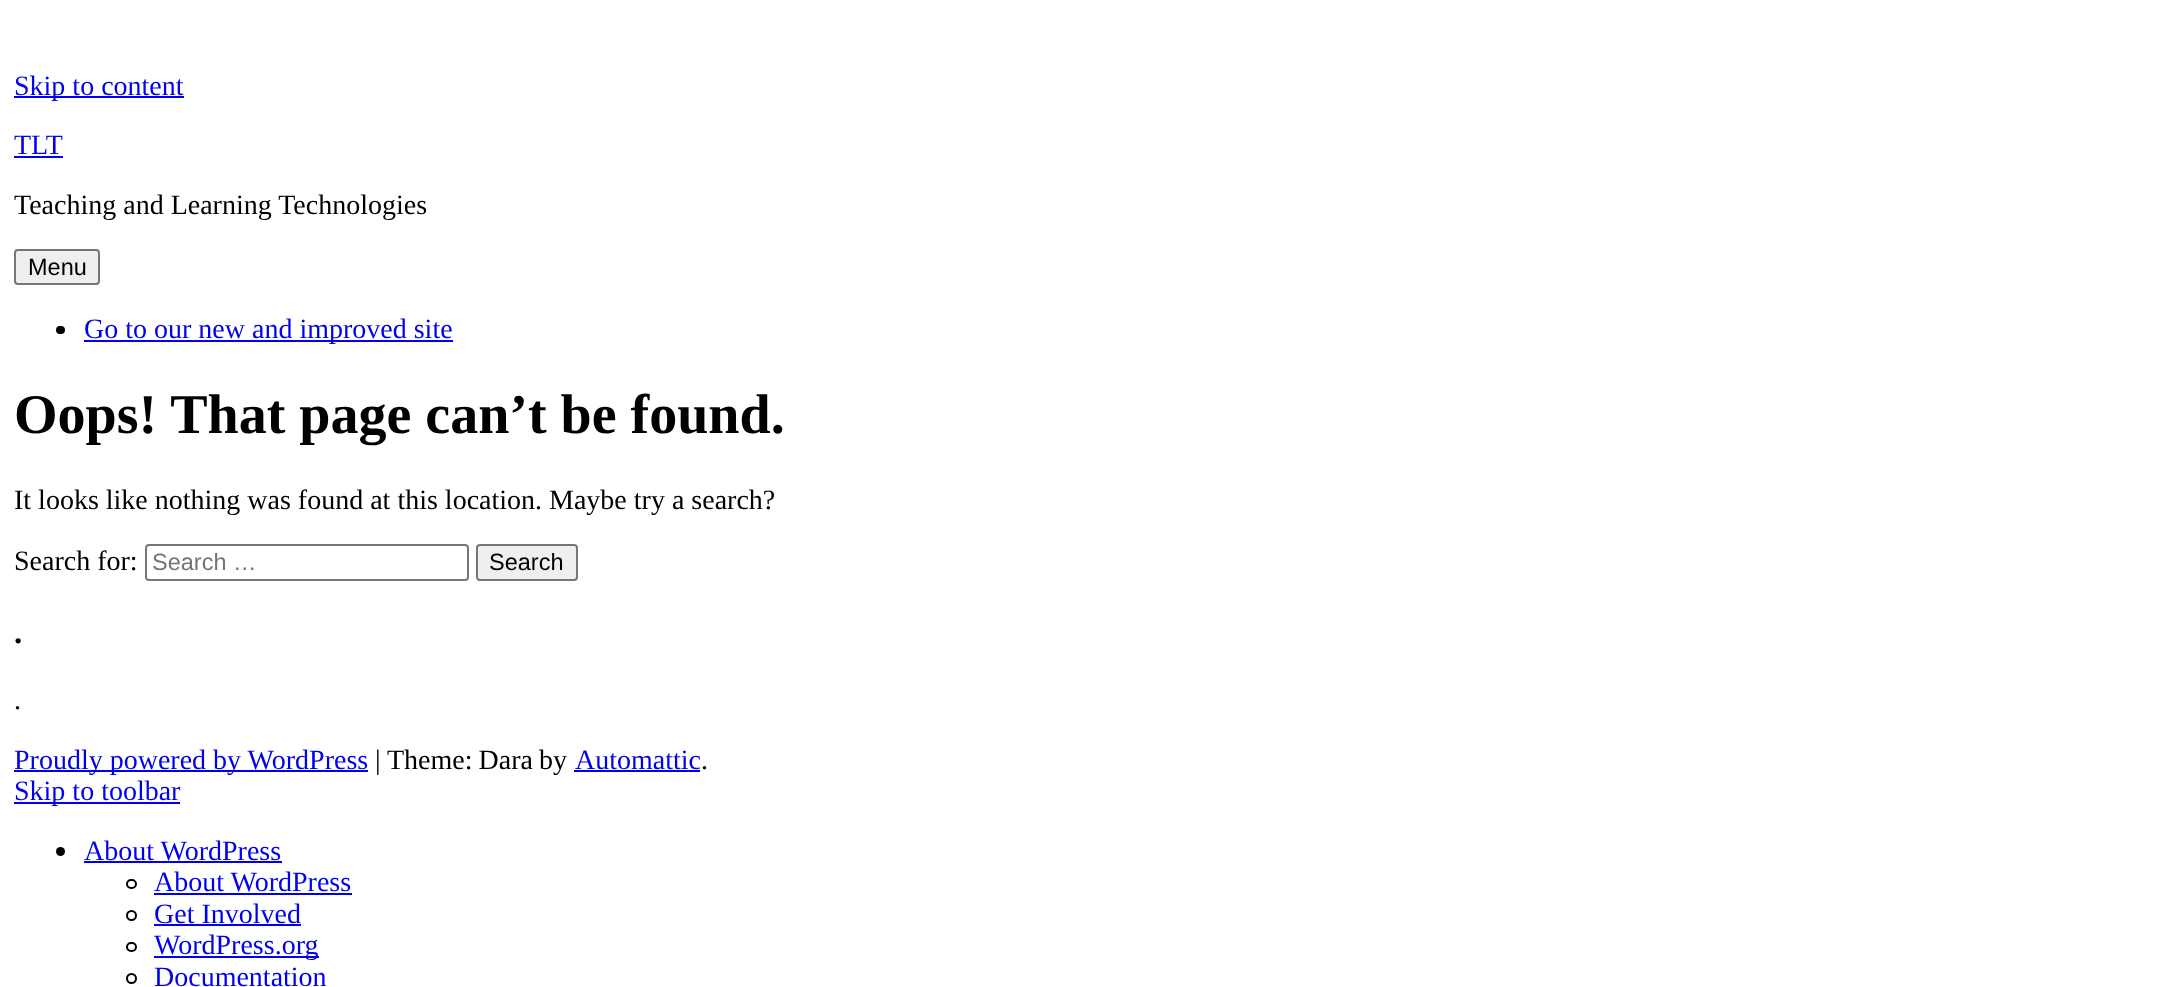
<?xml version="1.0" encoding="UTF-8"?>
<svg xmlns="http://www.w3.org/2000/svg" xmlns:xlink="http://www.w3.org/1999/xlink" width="2181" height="987">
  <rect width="100%" height="100%" fill="#ffffff" />
  <rect x="14" y="96" width="170" height="2" fill="#0000ee" />
  <rect x="14" y="156" width="49" height="2" fill="#0000ee" />
  <rect x="15" y="250" width="84" height="34" rx="3" fill="#efefef" stroke="#767676" stroke-width="2" />
  <rect x="56" y="326" width="9" height="8" rx="4" fill="#000000" />
  <rect x="84" y="340" width="369" height="2" fill="#0000ee" />
  <rect x="146" y="545" width="322" height="35" rx="3" fill="none" stroke="#767676" stroke-width="2" />
  <rect x="477" y="545" width="100" height="35" rx="3" fill="#efefef" stroke="#767676" stroke-width="2" />
  <rect x="14" y="770" width="354" height="2" fill="#0000ee" />
  <rect x="574" y="770" width="126" height="2" fill="#0000ee" />
  <rect x="14" y="802" width="166" height="2" fill="#0000ee" />
  <circle cx="60.5" cy="851.5" r="4.5" fill="#000000" />
  <rect x="84" y="861" width="198" height="2" fill="#0000ee" />
  <rect x="127" y="880" width="9" height="8" rx="4" fill="none" stroke="#000000" stroke-width="2" />
  <rect x="154" y="893" width="198" height="2" fill="#0000ee" />
  <circle cx="131.5" cy="915.5" r="4.5" fill="none" stroke="#000000" stroke-width="2" />
  <rect x="154" y="924" width="147" height="2" fill="#0000ee" />
  <rect x="127" y="943" width="9" height="8" rx="4" fill="none" stroke="#000000" stroke-width="2" />
  <rect x="154" y="956" width="165" height="2" fill="#0000ee" />
  <circle cx="131.5" cy="978.5" r="4.5" fill="none" stroke="#000000" stroke-width="2" />
  <text x="14" y="95" style="font-family: Liberation Serif; font-size: 28px; fill: #0000ee">Skip to content</text>
  <text x="14" y="154" style="font-family: Liberation Serif; font-size: 28px; fill: #0000ee">TLT</text>
  <text x="14" y="214" style="font-family: Liberation Serif; font-size: 28px; fill: #000000">Teaching and Learning Technologies</text>
  <text x="28" y="275" style="font-family: Liberation Sans; font-size: 23.5px; fill: #000000">Menu</text>
  <text x="84" y="338" style="font-family: Liberation Serif; font-size: 28px; fill: #0000ee">Go to our new and improved site</text>
  <text x="14" y="433" style="font-family: Liberation Serif; font-size: 56px; font-weight: bold; fill: #000000">Oops! That page can’t be found.</text>
  <text x="14" y="509" style="font-family: Liberation Serif; font-size: 28px; fill: #000000">It looks like nothing was found at this location. Maybe try a search?</text>
  <text x="14" y="570" style="font-family: Liberation Serif; font-size: 28px; fill: #000000">Search for:</text>
  <text x="152" y="570" style="font-family: Liberation Sans; font-size: 23.5px; fill: #757575">Search …</text>
  <text x="489" y="570" style="font-family: Liberation Sans; font-size: 23.5px; fill: #000000">Search</text>
  <text x="14" y="643" style="font-family: Liberation Serif; font-size: 33px; font-weight: bold; fill: #000000">.</text>
  <text x="14" y="709" style="font-family: Liberation Serif; font-size: 28px; fill: #000000">.</text>
  <text x="14" y="769" style="font-family: Liberation Serif; font-size: 28px; fill: #0000ee">Proudly powered by WordPress</text>
  <text x="375" y="769" style="font-family: Liberation Serif; font-size: 28px; fill: #000000">|</text>
  <text x="387" y="769" word-spacing="-1" style="font-family: Liberation Serif; font-size: 28px; fill: #000000">Theme: Dara by</text>
  <text x="575" y="769" style="font-family: Liberation Serif; font-size: 28px; fill: #0000ee">Automattic</text>
  <text x="701" y="769" style="font-family: Liberation Serif; font-size: 28px; fill: #000000">.</text>
  <text x="14" y="800" style="font-family: Liberation Serif; font-size: 28px; fill: #0000ee">Skip to toolbar</text>
  <text x="84" y="860" style="font-family: Liberation Serif; font-size: 28px; fill: #0000ee">About WordPress</text>
  <text x="154" y="891" style="font-family: Liberation Serif; font-size: 28px; fill: #0000ee">About WordPress</text>
  <text x="154" y="923" style="font-family: Liberation Serif; font-size: 28px; fill: #0000ee">Get Involved</text>
  <text x="154" y="954" style="font-family: Liberation Serif; font-size: 28px; fill: #0000ee">WordPress.org</text>
  <text x="154" y="986" style="font-family: Liberation Serif; font-size: 28px; fill: #0000ee">Documentation</text>
</svg>
